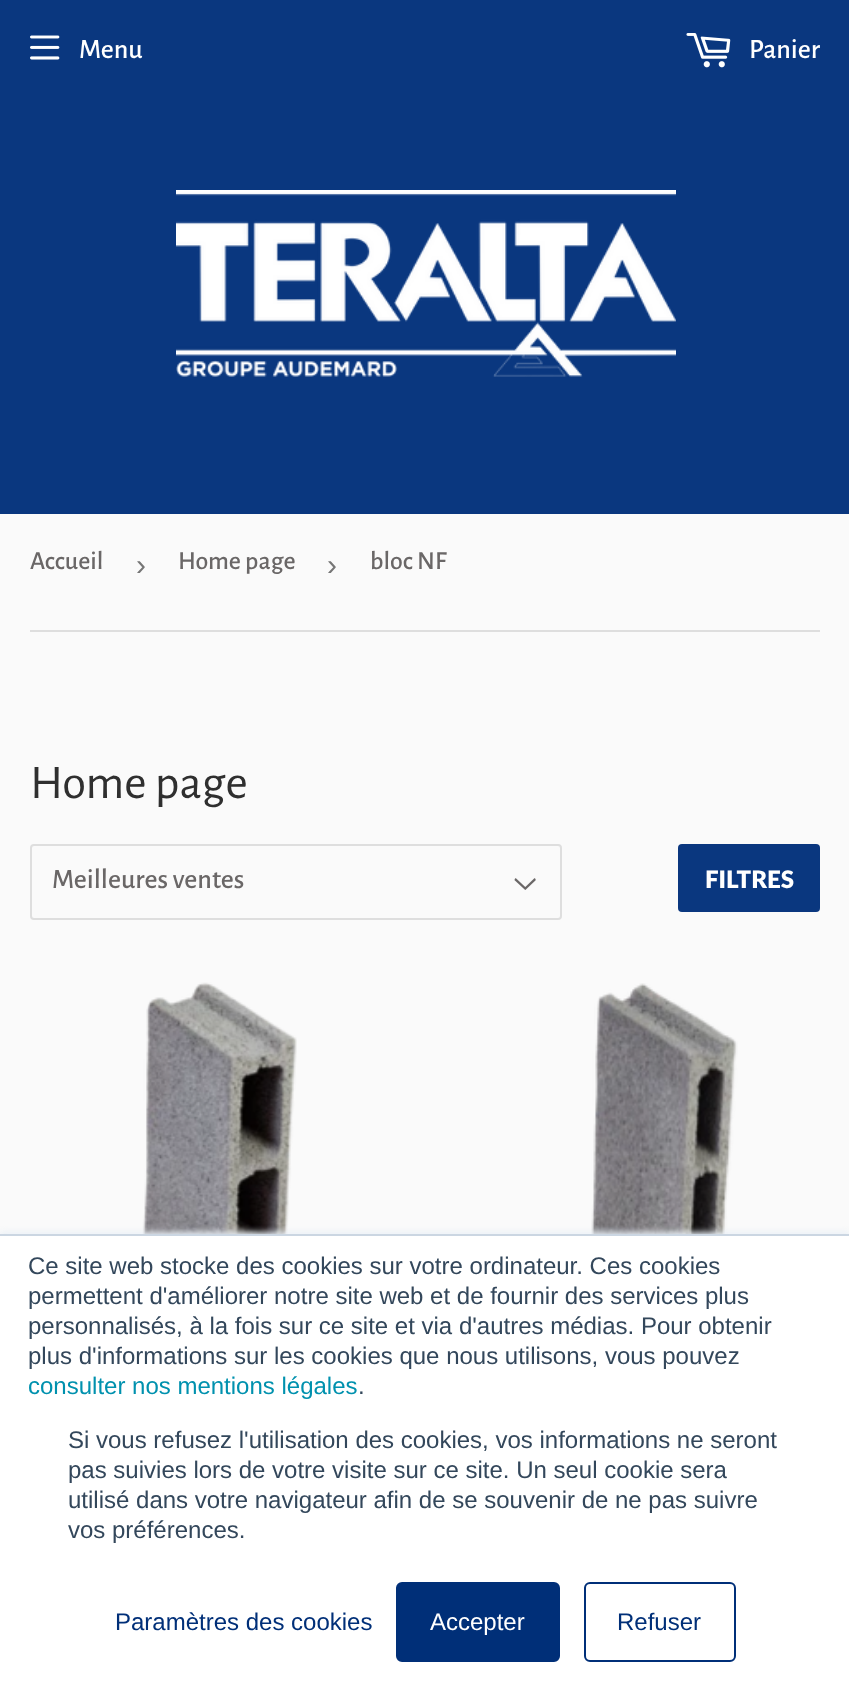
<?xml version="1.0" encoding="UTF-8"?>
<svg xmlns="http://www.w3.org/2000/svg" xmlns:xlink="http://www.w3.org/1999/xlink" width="849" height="1702">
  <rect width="100%" height="100%" fill="#fafafa" />
  <rect width="849" height="514" fill="#0a377f" />
  <image x="176" y="190" width="500" height="187" xlink:href="image1.png" />
  <image x="30" y="35" width="30" height="25" xlink:href="image2.png" />
  <image x="686" y="33" width="45" height="35" xlink:href="image3.png" />
  <rect x="30" y="630" width="790" height="2" fill="#dedede" />
  <image x="514" y="878" width="22" height="12" xlink:href="image4.png" />
  <rect x="31" y="845" width="530" height="74" rx="3" fill="none" stroke="#dedede" stroke-width="2" />
  <rect x="678" y="844" width="142" height="68" rx="4" fill="#0a377f" />
  <image x="142" y="982" width="155" height="252" xlink:href="image5.png" />
  <image x="591" y="983" width="147" height="251" xlink:href="image6.png" />
  <rect y="1232" width="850" height="468" fill="#eaf0f6" filter="blur(3px)" />
  <rect y="1236" width="849" height="466" fill="#ffffff" />
  <rect y="1234" width="849" height="2" fill="#cbd6e2" />
  <rect x="397" y="1583" width="162" height="78" rx="5" fill="#002f78" stroke="#002f78" stroke-width="2" />
  <rect x="585" y="1583" width="150" height="78" rx="5" fill="none" stroke="#002f78" stroke-width="2" />
  <text x="79" y="58" style="font-family: Alegreya Sans; font-size: 28px; font-weight: 500; fill: #ffffff">Menu</text>
  <text x="749" y="58" style="font-family: Alegreya Sans; font-size: 28px; font-weight: 500; fill: #ffffff">Panier</text>
  <text x="30" y="569" style="font-family: Alegreya Sans; font-size: 26px; font-weight: 500; fill: #6a6767">Accueil</text>
  <text x="136" y="575" style="font-family: Liberation Sans; font-size: 30px; fill: #767676">›</text>
  <text x="178" y="569" style="font-family: Alegreya Sans; font-size: 26px; font-weight: 500; fill: #6a6767">Home page</text>
  <text x="327" y="575" style="font-family: Liberation Sans; font-size: 30px; fill: #767676">›</text>
  <text x="370" y="569" style="font-family: Alegreya Sans; font-size: 26px; font-weight: 500; fill: #6a6767">bloc NF</text>
  <text x="30" y="798" style="font-family: Alegreya Sans; font-size: 48.5px; fill: #2f2f2f">Home page</text>
  <text x="52" y="888" style="font-family: Alegreya Sans; font-size: 28px; font-weight: 500; fill: #6a6767">Meilleures ventes</text>
  <text x="705" y="888" style="font-family: Lato; font-size: 24px; font-weight: 800; fill: #ffffff">FILTRES</text>
  <text x="28" y="1274" style="font-family: Liberation Sans; font-size: 24px; fill: #33475b">Ce site web stocke des cookies sur votre ordinateur. Ces cookies</text>
  <text x="28" y="1304" style="font-family: Liberation Sans; font-size: 24px; fill: #33475b">permettent d'améliorer notre site web et de fournir des services plus</text>
  <text x="28" y="1334" style="font-family: Liberation Sans; font-size: 24px; fill: #33475b">personnalisés, à la fois sur ce site et via d'autres médias. Pour obtenir</text>
  <text x="28" y="1364" style="font-family: Liberation Sans; font-size: 24px; fill: #33475b">plus d'informations sur les cookies que nous utilisons, vous pouvez</text>
  <text x="28" y="1394" style="font-family: Liberation Sans; font-size: 24px; fill: #0091ae">consulter nos mentions légales</text>
  <text x="358" y="1394" style="font-family: Liberation Sans; font-size: 24px; fill: #33475b">.</text>
  <text x="68" y="1448" style="font-family: Liberation Sans; font-size: 24px; fill: #33475b">Si vous refusez l'utilisation des cookies, vos informations ne seront</text>
  <text x="68" y="1478" style="font-family: Liberation Sans; font-size: 24px; fill: #33475b">pas suivies lors de votre visite sur ce site. Un seul cookie sera</text>
  <text x="68" y="1508" style="font-family: Liberation Sans; font-size: 24px; fill: #33475b">utilisé dans votre navigateur afin de se souvenir de ne pas suivre</text>
  <text x="68" y="1538" style="font-family: Liberation Sans; font-size: 24px; fill: #33475b">vos préférences.</text>
  <text x="115" y="1630" style="font-family: Liberation Sans; font-size: 24px; fill: #002f78">Paramètres des cookies</text>
  <text x="430" y="1630" style="font-family: Liberation Sans; font-size: 24px; fill: #ffffff">Accepter</text>
  <text x="617" y="1630" style="font-family: Liberation Sans; font-size: 24px; fill: #002f78">Refuser</text>
</svg>
